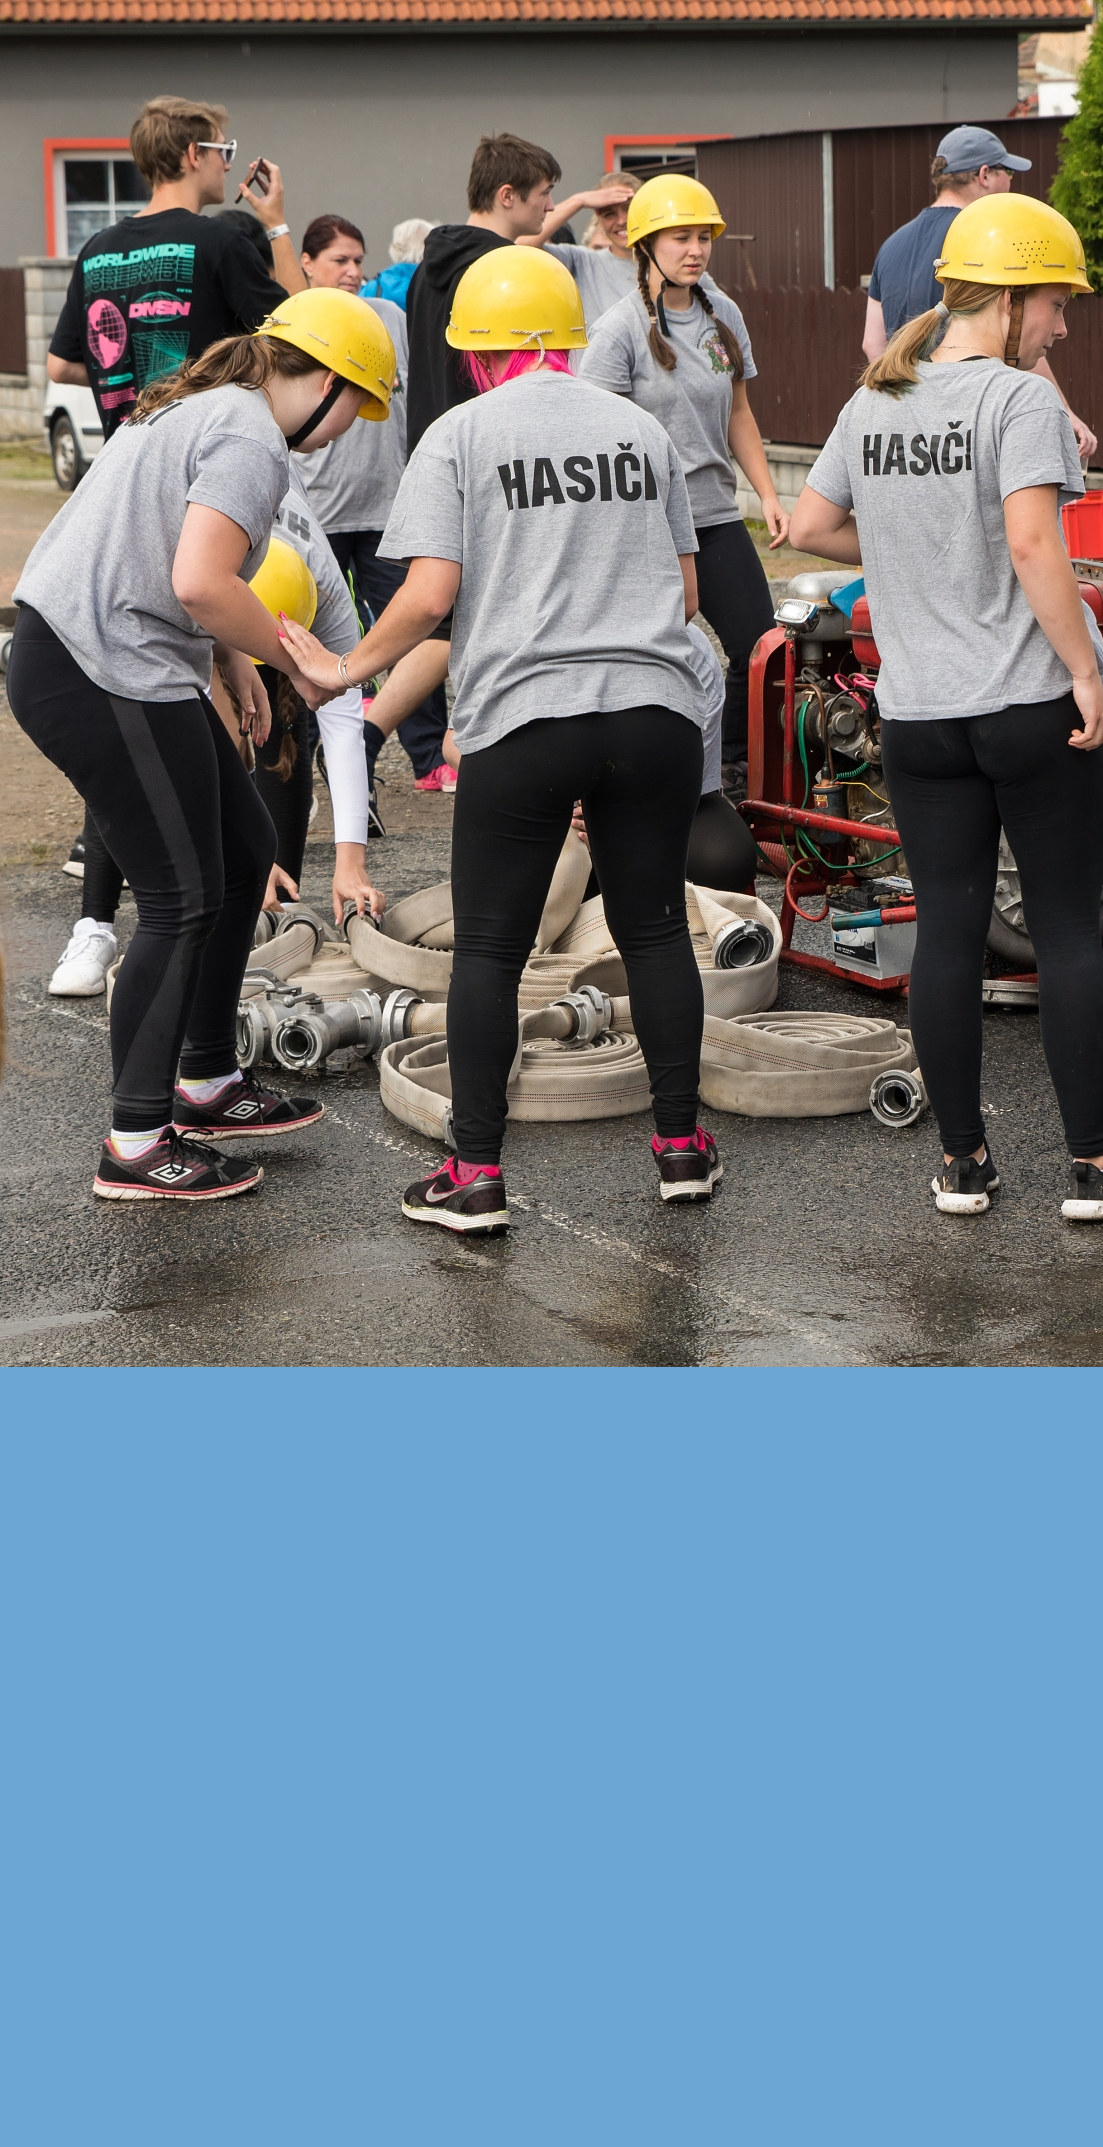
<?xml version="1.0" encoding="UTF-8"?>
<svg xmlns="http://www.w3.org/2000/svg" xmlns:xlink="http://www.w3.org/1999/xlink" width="1103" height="2147">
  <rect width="100%" height="100%" fill="#6ba6d4" />
  <image x="0" y="0" width="1103" height="1367" xlink:href="image1.png" />
</svg>
